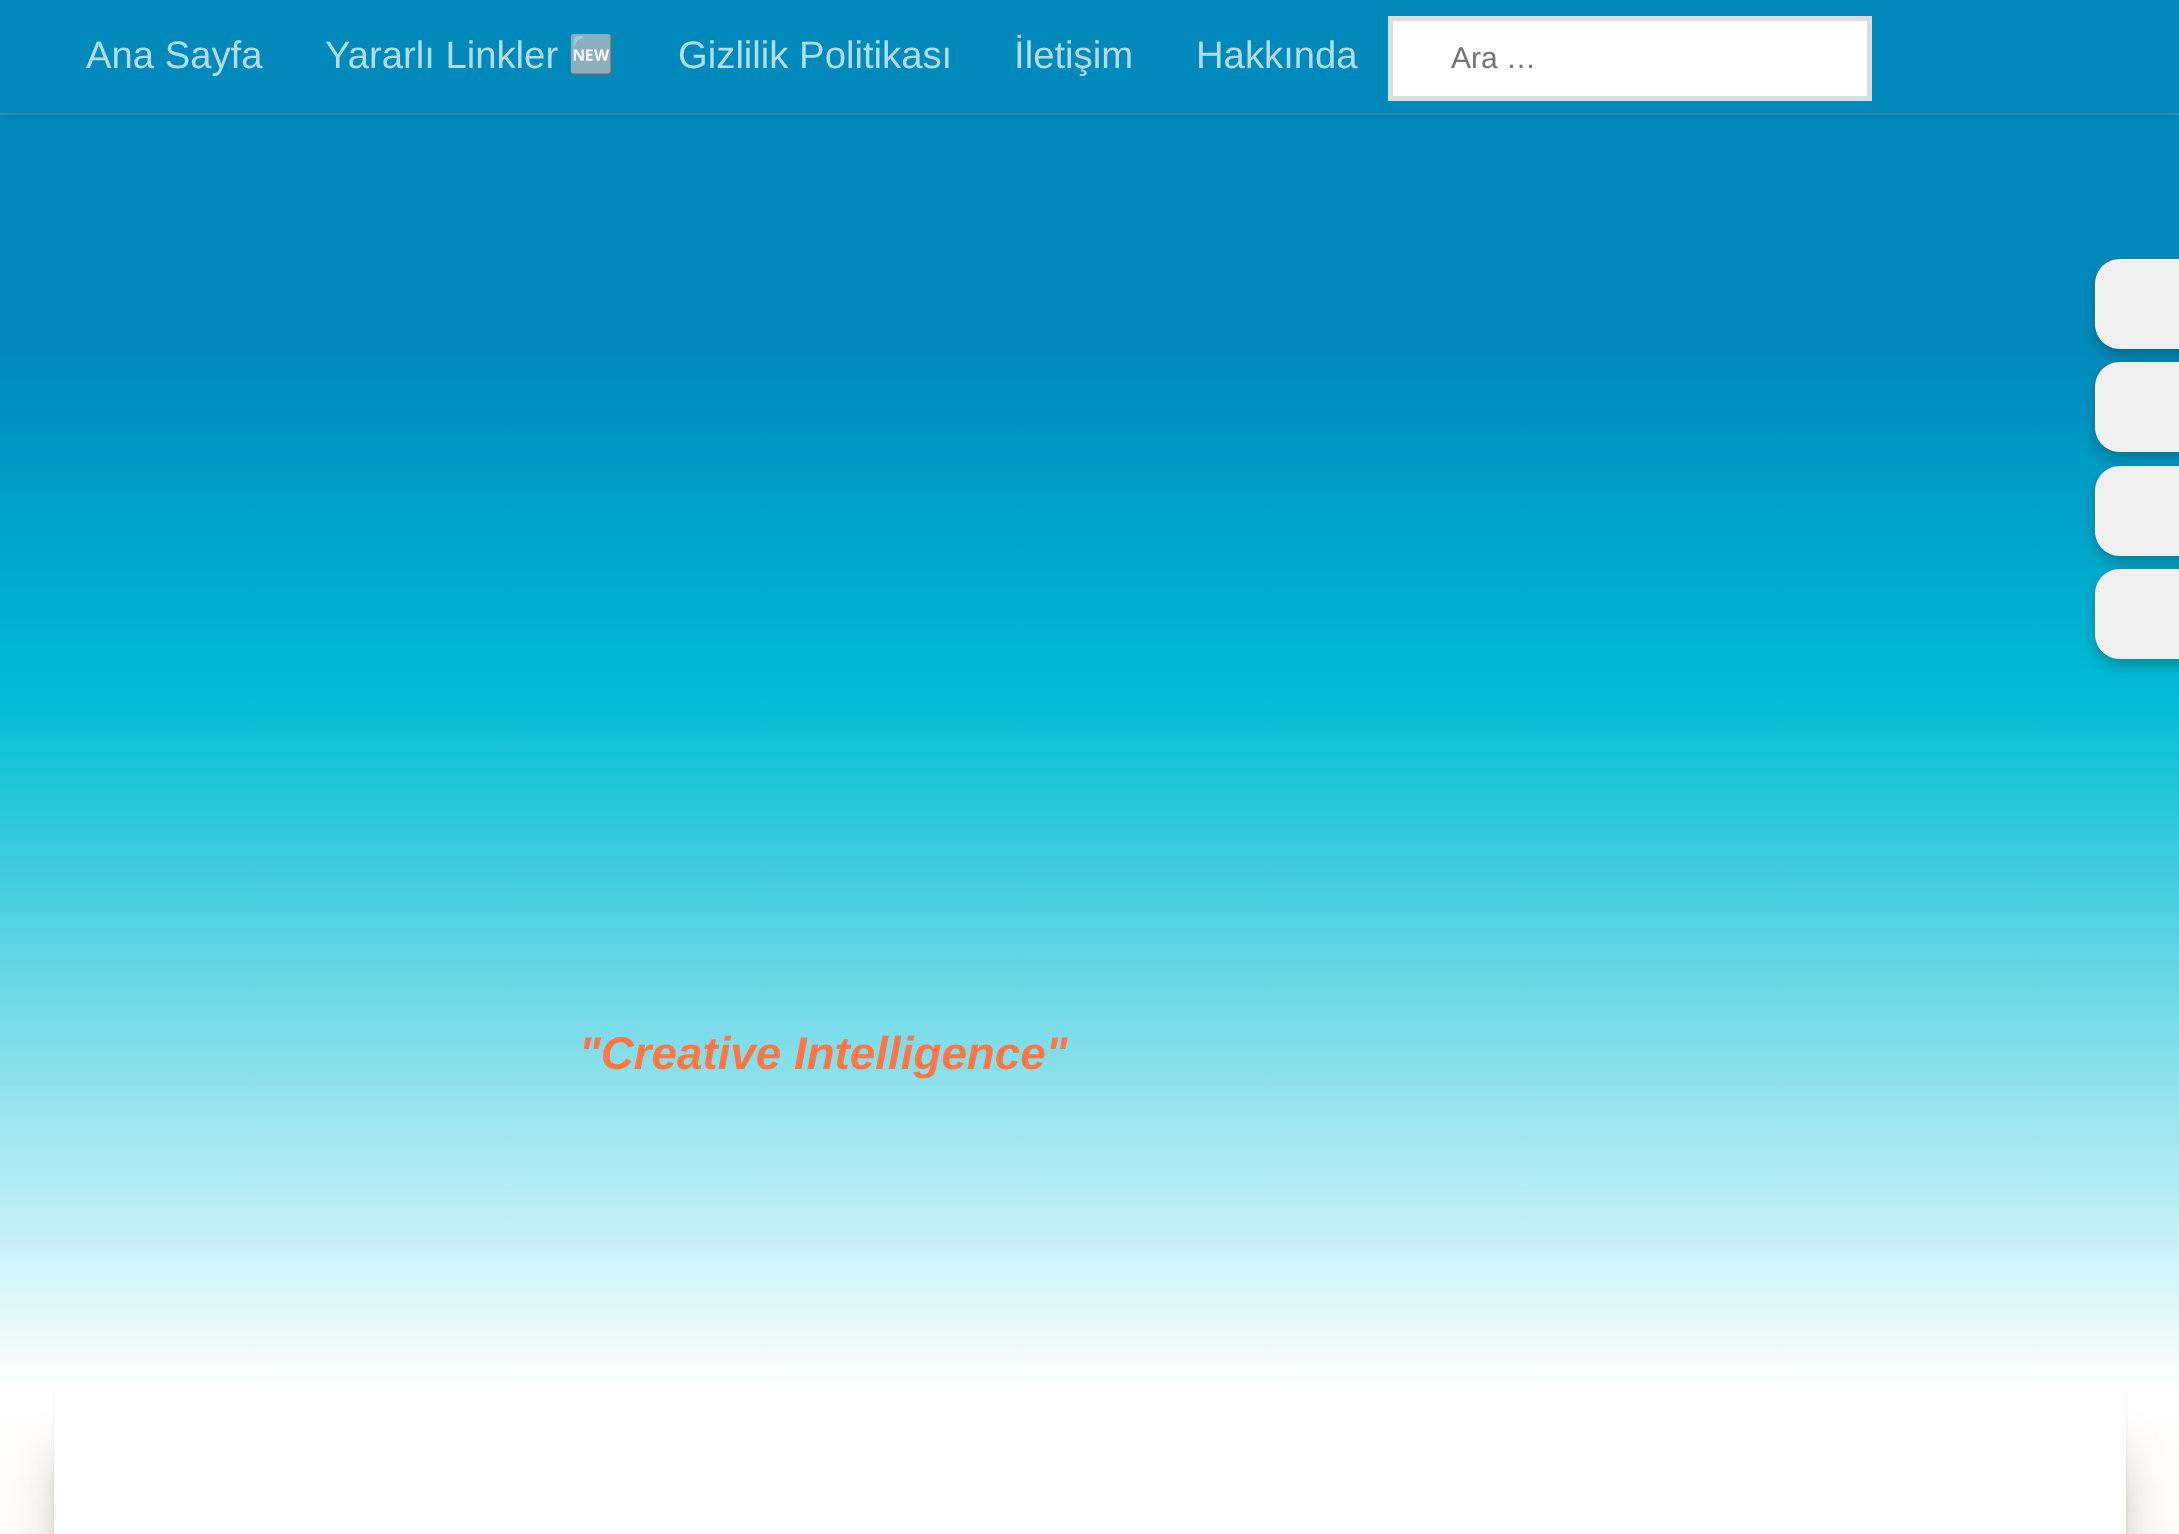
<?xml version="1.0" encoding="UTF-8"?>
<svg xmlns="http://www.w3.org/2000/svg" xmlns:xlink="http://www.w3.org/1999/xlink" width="2179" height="1534">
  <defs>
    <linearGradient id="g1" gradientUnits="userSpaceOnUse" x1="1090" y1="0" x2="1090" y2="1391"><stop offset="0" stop-color="#008abc" /><stop offset="0.25" stop-color="#008abc" /><stop offset="0.5" stop-color="#00bcd4" /><stop offset="1" stop-color="#ffffff" /></linearGradient>
    <linearGradient id="g2" gradientUnits="userSpaceOnUse" x1="1090" y1="1391" x2="1090" y2="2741"><stop offset="0" stop-color="#ffffff" /><stop offset="0.5" stop-color="#ffebcc" /><stop offset="1" stop-color="#ffffff" /></linearGradient>
    <clipPath id="clip1"><path d="M 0 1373 h 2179 v 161 h -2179 z m 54 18 h 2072 v 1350 h -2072 z" clip-rule="evenodd" /></clipPath>
  </defs>
  <rect width="100%" height="100%" fill="#ffffff" />
  <rect y="115" width="2179" height="1269" fill="url(#g1)" />
  <rect y="113" width="2179" height="2" fill="#269cc6" />
  <rect width="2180" height="113" fill="#000000" fill-opacity="0.2" filter="blur(5.5px)" />
  <rect width="2179" height="113" fill="#008abc" />
  <rect x="1390.5" y="18.5" width="479" height="80" fill="#ffffff" stroke="#dddddd" stroke-width="5" />
  <rect y="1424" width="2179" height="110" fill="url(#g2)" />
  <rect x="54" y="1393" width="2072" height="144" fill="#000000" fill-opacity="0.1" filter="blur(1px)" />
  <rect x="54" y="1392" width="2072" height="142" fill="#ffffff" />
  <g clip-path="url(#clip1)">
    <rect x="77" y="1458" width="2027" height="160" fill="#000000" fill-opacity="0.5" filter="blur(28px)" />
  </g>
  <rect x="2095" y="266" width="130" height="90" rx="25" fill="#000000" fill-opacity="0.23" filter="blur(7px)" />
  <path d="M 2120 259 h 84 v 90 h -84 c -14 0 -25 -11 -25 -25 v -40 c 0 -14 11 -25 25 -25 z" fill="#f0f0f1" />
  <rect x="2095" y="369" width="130" height="90" rx="25" fill="#000000" fill-opacity="0.23" filter="blur(7px)" />
  <path d="M 2120 362 h 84 v 90 h -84 c -14 0 -25 -11 -25 -25 v -40 c 0 -14 11 -25 25 -25 z" fill="#f0f0f1" />
  <rect x="2095" y="473" width="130" height="90" rx="25" fill="#000000" fill-opacity="0.23" filter="blur(7px)" />
  <path d="M 2120 466 h 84 v 90 h -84 c -14 0 -25 -11 -25 -25 v -40 c 0 -14 11 -25 25 -25 z" fill="#f0f0f1" />
  <rect x="2095" y="576" width="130" height="90" rx="25" fill="#000000" fill-opacity="0.23" filter="blur(7px)" />
  <path d="M 2120 569 h 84 v 90 h -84 c -14 0 -25 -11 -25 -25 v -40 c 0 -14 11 -25 25 -25 z" fill="#f0f0f1" />
  <text x="86" y="68" style="font-family: Liberation Sans; font-size: 38.25px; fill: #b3dceb">Ana Sayfa</text>
  <text x="325" y="68" style="font-family: Liberation Sans; font-size: 38.25px; fill: #b3dceb">Yararlı Linkler</text>
  <text x="568" y="68" style="font-family: Noto Color Emoji; font-size: 38.25px; fill: #b3dceb">🆕</text>
  <text x="678" y="68" style="font-family: Liberation Sans; font-size: 38.25px; fill: #b3dceb">Gizlilik Politikası</text>
  <text x="1014" y="68" style="font-family: Liberation Sans; font-size: 38.25px; fill: #b3dceb">İletişim</text>
  <text x="1196" y="68" style="font-family: Liberation Sans; font-size: 38.25px; fill: #b3dceb">Hakkında</text>
  <text x="1451" y="68" style="font-family: Liberation Sans; font-size: 30px; fill: #757575">Ara …</text>
  <text x="579" y="1069" style="font-family: Liberation Sans; font-size: 45.75px; font-weight: bold; font-style: italic; fill: #ff7543">"Creative Intelligence"</text>
</svg>
